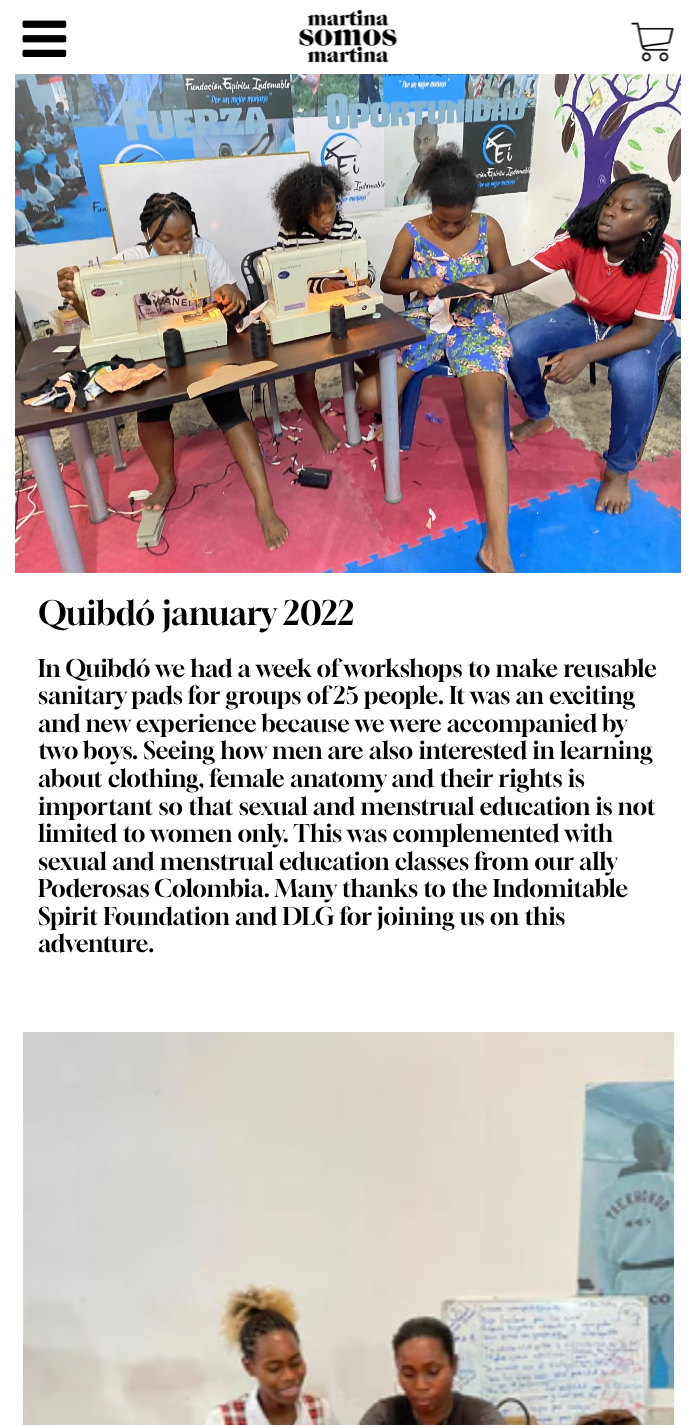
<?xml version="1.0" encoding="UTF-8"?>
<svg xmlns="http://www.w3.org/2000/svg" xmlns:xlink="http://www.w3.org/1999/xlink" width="695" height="1425">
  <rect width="100%" height="100%" fill="#ffffff" />
  <image x="22" y="20" width="45" height="37" xlink:href="image1.png" />
  <image x="298" y="9" width="100" height="54" xlink:href="image2.png" />
  <image x="631" y="22" width="43" height="40" xlink:href="image3.png" />
  <image x="15" y="74" width="666" height="499" xlink:href="image4.png" />
  <image x="23" y="1032" width="651" height="393" xlink:href="image5.png" />
  <text x="38" y="625" style="font-family: Gloock; font-size: 33px; fill: #000000">Quibdó january 2022</text>
  <text x="38" y="677" style="font-family: Gloock; font-size: 24px; fill: #000000">In Quibdó we had a week of workshops to make reusable</text>
  <text x="38" y="704" style="font-family: Gloock; font-size: 24px; fill: #000000">sanitary pads for groups of 25 people. It was an exciting</text>
  <text x="38" y="732" style="font-family: Gloock; font-size: 24px; fill: #000000">and new experience because we were accompanied by</text>
  <text x="38" y="759" style="font-family: Gloock; font-size: 24px; fill: #000000">two boys. Seeing how men are also interested in learning</text>
  <text x="38" y="787" style="font-family: Gloock; font-size: 24px; fill: #000000">about clothing, female anatomy and their rights is</text>
  <text x="38" y="815" style="font-family: Gloock; font-size: 24px; fill: #000000">important so that sexual and menstrual education is not</text>
  <text x="38" y="842" style="font-family: Gloock; font-size: 24px; fill: #000000">limited to women only. This was complemented with</text>
  <text x="38" y="870" style="font-family: Gloock; font-size: 24px; fill: #000000">sexual and menstrual education classes from our ally</text>
  <text x="38" y="897" style="font-family: Gloock; font-size: 24px; fill: #000000">Poderosas Colombia. Many thanks to the Indomitable</text>
  <text x="38" y="925" style="font-family: Gloock; font-size: 24px; fill: #000000">Spirit Foundation and DLG for joining us on this</text>
  <text x="38" y="952" style="font-family: Gloock; font-size: 24px; fill: #000000">adventure.</text>
</svg>
